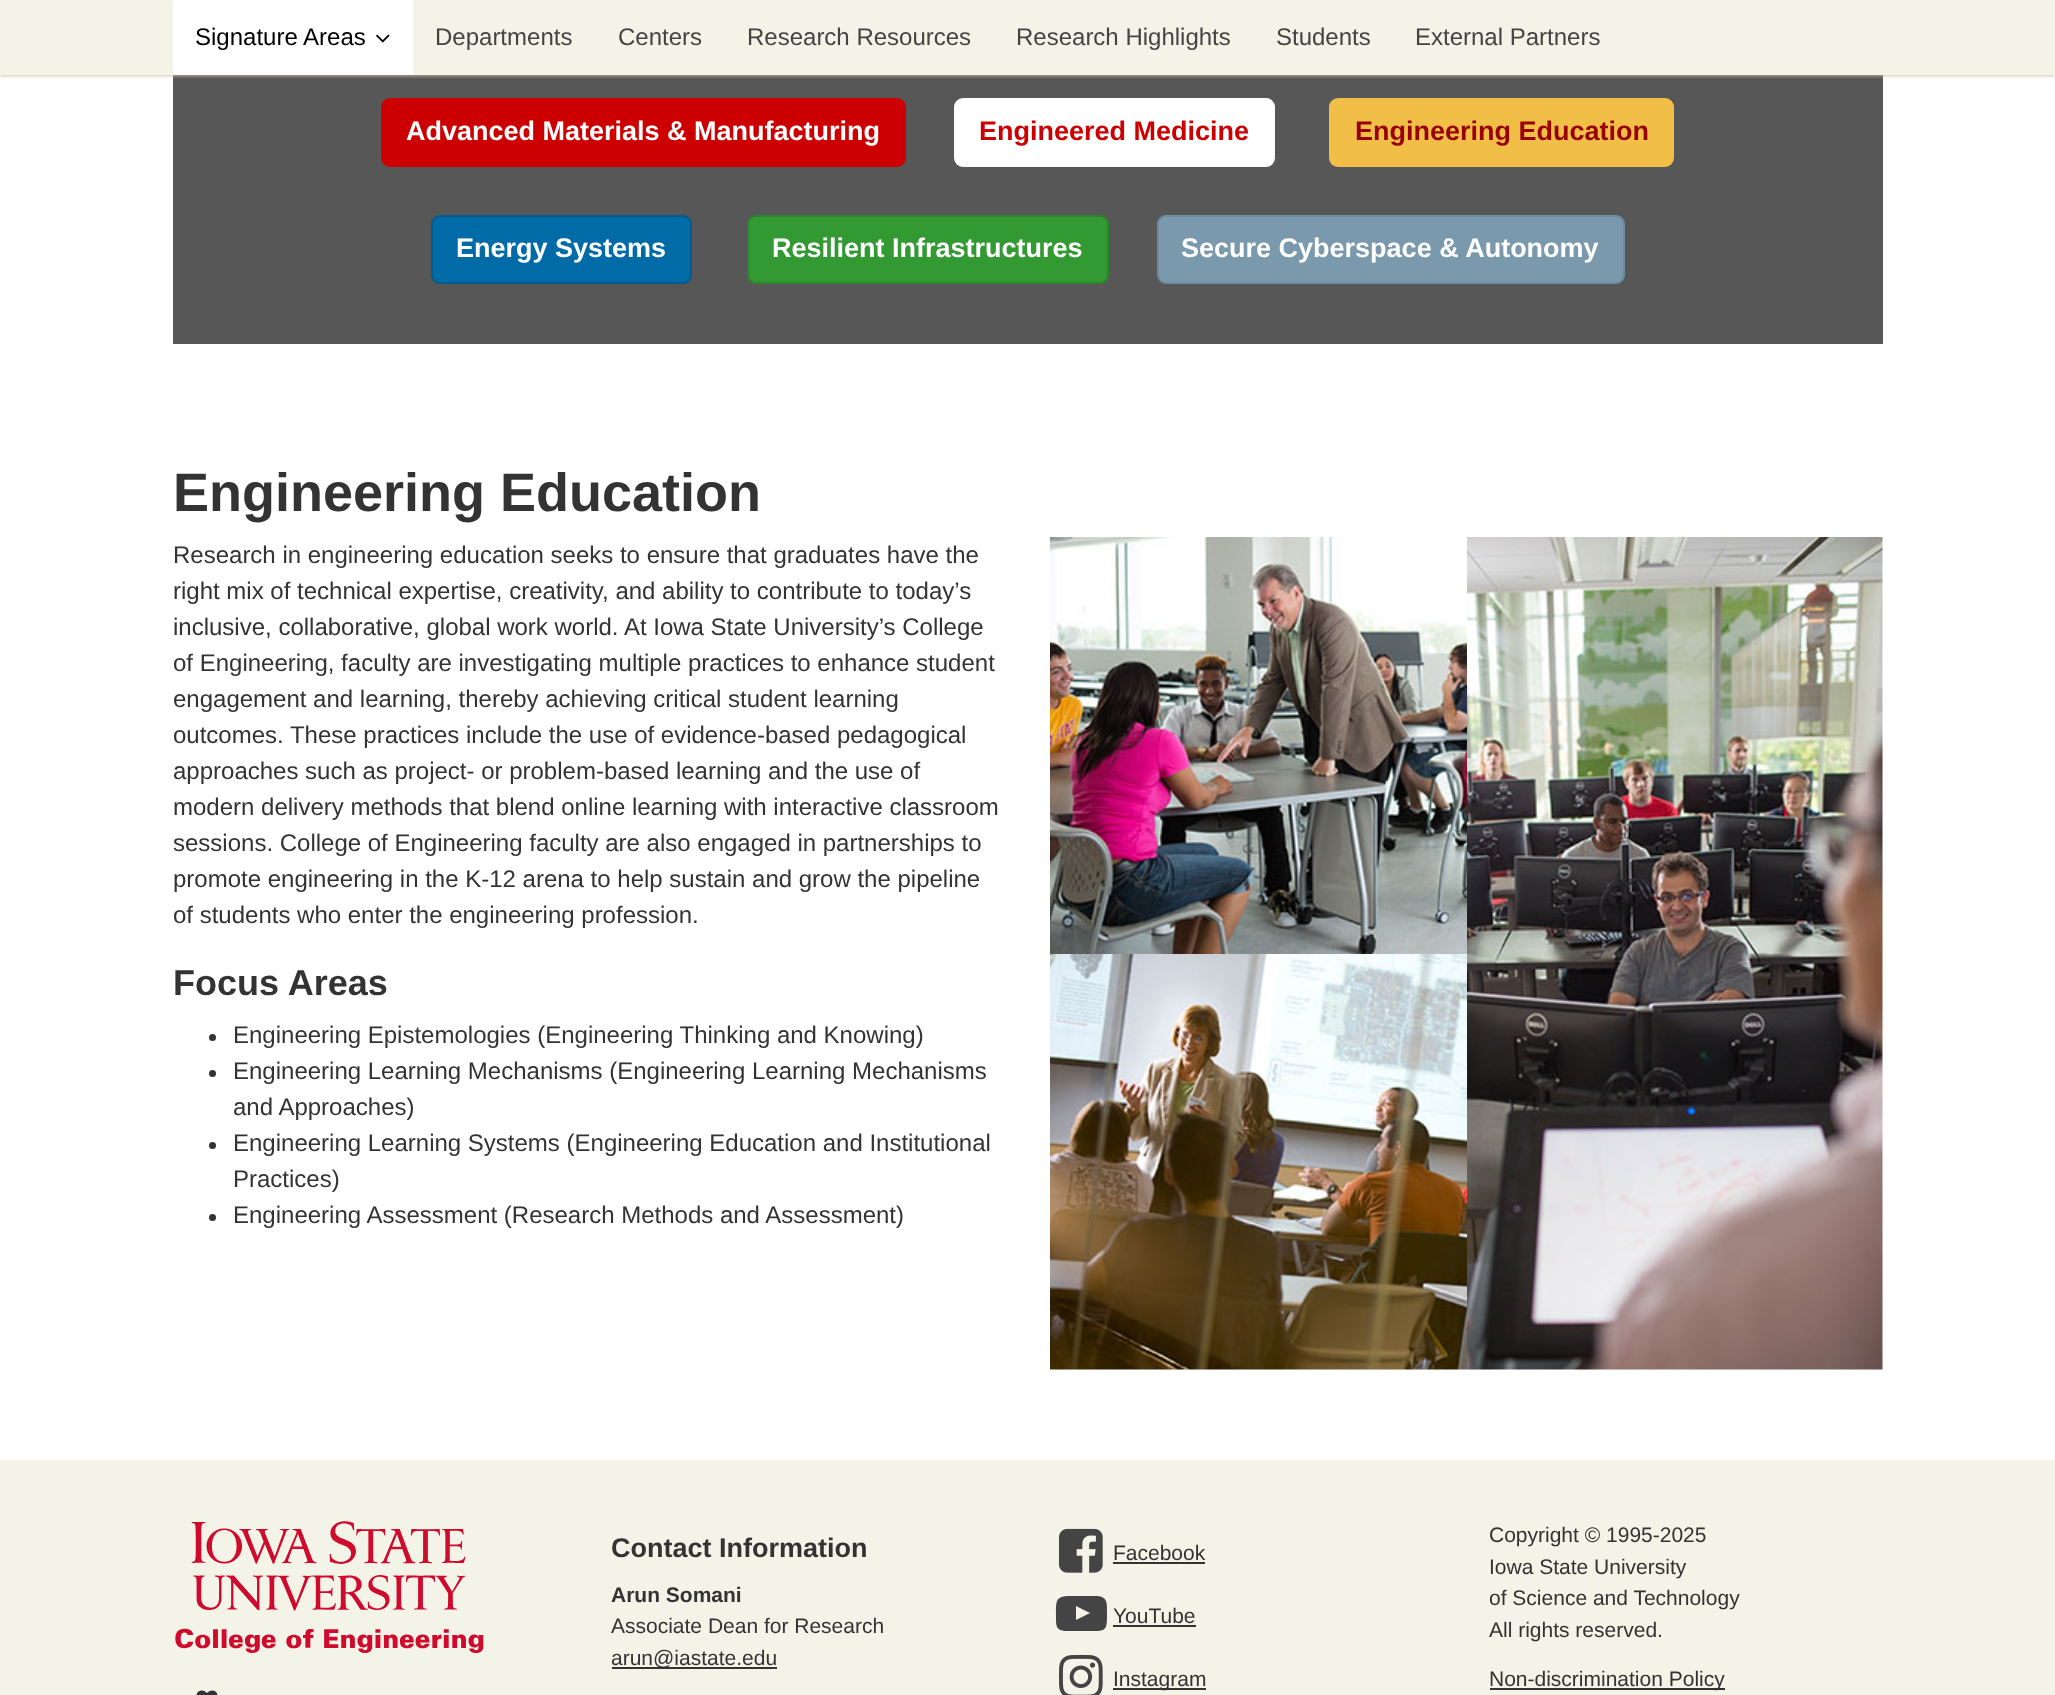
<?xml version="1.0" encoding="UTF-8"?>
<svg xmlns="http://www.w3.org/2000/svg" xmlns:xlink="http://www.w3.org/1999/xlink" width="2055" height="1695">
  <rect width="100%" height="100%" fill="#f4f3e8" />
  <rect y="75" width="2055" height="1385" fill="#ffffff" />
  <rect x="173" y="75" width="1710" height="269" fill="#575757" />
  <rect y="2" width="2055" height="75" fill="#c8c2a7" fill-opacity="0.55" filter="blur(1px)" />
  <rect y="1" width="2055" height="74" fill="#f4f3e8" />
  <rect x="173" width="240" height="75" fill="#ffffff" />
  <image x="376" y="34" width="14" height="9" xlink:href="image1.png" />
  <rect x="381" y="98" width="525" height="69" rx="9" fill="#cc0000" />
  <rect x="954" y="98" width="321" height="69" rx="9" fill="#ffffff" />
  <rect x="1329" y="98" width="345" height="69" rx="9" fill="#f1be48" />
  <rect x="432" y="216" width="259" height="67" rx="8" fill="#006ba6" stroke="#005b8d" stroke-width="2" />
  <rect x="748" y="216" width="360" height="67" rx="8" fill="#339933" stroke="#2d862d" stroke-width="2" />
  <rect x="1158" y="216" width="466" height="67" rx="8" fill="#7a99ac" stroke="#6a8da2" stroke-width="2" />
  <circle cx="212.5" cy="1037.5" r="3.5" fill="#333333" />
  <circle cx="212.5" cy="1073.5" r="3.5" fill="#333333" />
  <circle cx="212.5" cy="1145.5" r="3.5" fill="#333333" />
  <circle cx="212.5" cy="1217.5" r="3.5" fill="#333333" />
  <image x="1050" y="537" width="417" height="417" xlink:href="image2.png" />
  <image x="1050" y="954" width="417" height="416" xlink:href="image3.png" />
  <image x="1467" y="537" width="416" height="833" xlink:href="image4.png" />
  <image x="175" y="1521" width="309" height="132" xlink:href="image5.png" />
  <image x="196" y="1690" width="22" height="5" xlink:href="image6.png" />
  <rect x="612" y="1667" width="165" height="2" fill="#333333" />
  <image x="1059" y="1528" width="44" height="45" xlink:href="image7.png" />
  <rect x="1113" y="1562" width="92" height="2" fill="#333333" />
  <path d="M 1076 1620 l 14 -7 l -14 -7 z m 6 -24 h 15 c 11 1 10 7 10 18 c 0 13 0 17 -11 17 h -29 c -12 0 -11 -6 -11 -17 c 0 -13 0 -17 11 -18 z" fill="#444444" />
  <rect x="1113" y="1625" width="83" height="2" fill="#333333" />
  <image x="1059" y="1654" width="44" height="41" xlink:href="image8.png" />
  <rect x="1113" y="1688" width="93" height="2" fill="#333333" />
  <rect x="1490" y="1688" width="235" height="2" fill="#333333" />
  <text x="195" y="45" style="font-family: Liberation Sans; font-size: 24px; fill: #000000">Signature Areas</text>
  <text x="435" y="45" style="font-family: Liberation Sans; font-size: 24px; fill: #444444">Departments</text>
  <text x="618" y="45" style="font-family: Liberation Sans; font-size: 24px; fill: #444444">Centers</text>
  <text x="747" y="45" style="font-family: Liberation Sans; font-size: 24px; fill: #444444">Research Resources</text>
  <text x="1016" y="45" style="font-family: Liberation Sans; font-size: 24px; fill: #444444">Research Highlights</text>
  <text x="1276" y="45" style="font-family: Liberation Sans; font-size: 24px; fill: #444444">Students</text>
  <text x="1415" y="45" style="font-family: Liberation Sans; font-size: 24px; fill: #444444">External Partners</text>
  <text x="406" y="140" style="font-family: Liberation Sans; font-size: 27px; font-weight: bold; fill: #ffffff">Advanced Materials &amp; Manufacturing</text>
  <text x="979" y="140" style="font-family: Liberation Sans; font-size: 27px; font-weight: bold; fill: #cc0000">Engineered Medicine</text>
  <text x="1355" y="140" style="font-family: Liberation Sans; font-size: 27px; font-weight: bold; fill: #990000">Engineering Education</text>
  <text x="456" y="257" style="font-family: Liberation Sans; font-size: 27px; font-weight: bold; fill: #ffffff">Energy Systems</text>
  <text x="772" y="257" style="font-family: Liberation Sans; font-size: 27px; font-weight: bold; fill: #ffffff">Resilient Infrastructures</text>
  <text x="1181" y="257" style="font-family: Liberation Sans; font-size: 27px; font-weight: bold; fill: #ffffff">Secure Cyberspace &amp; Autonomy</text>
  <text x="173" y="511" style="font-family: Liberation Sans; font-size: 54px; font-weight: bold; fill: #333333">Engineering Education</text>
  <text x="173" y="563" style="font-family: Liberation Sans; font-size: 24px; fill: #333333">Research in engineering education seeks to ensure that graduates have the</text>
  <text x="173" y="599" style="font-family: Liberation Sans; font-size: 24px; fill: #333333">right mix of technical expertise, creativity, and ability to contribute to today’s</text>
  <text x="173" y="635" style="font-family: Liberation Sans; font-size: 24px; fill: #333333">inclusive, collaborative, global work world. At Iowa State University’s College</text>
  <text x="173" y="671" style="font-family: Liberation Sans; font-size: 24px; fill: #333333">of Engineering, faculty are investigating multiple practices to enhance student</text>
  <text x="173" y="707" style="font-family: Liberation Sans; font-size: 24px; fill: #333333">engagement and learning, thereby achieving critical student learning</text>
  <text x="173" y="743" style="font-family: Liberation Sans; font-size: 24px; fill: #333333">outcomes. These practices include the use of evidence-based pedagogical</text>
  <text x="173" y="779" style="font-family: Liberation Sans; font-size: 24px; fill: #333333">approaches such as project- or problem-based learning and the use of</text>
  <text x="173" y="815" style="font-family: Liberation Sans; font-size: 24px; fill: #333333">modern delivery methods that blend online learning with interactive classroom</text>
  <text x="173" y="851" style="font-family: Liberation Sans; font-size: 24px; fill: #333333">sessions. College of Engineering faculty are also engaged in partnerships to</text>
  <text x="173" y="887" style="font-family: Liberation Sans; font-size: 24px; fill: #333333">promote engineering in the K-12 arena to help sustain and grow the pipeline</text>
  <text x="173" y="923" style="font-family: Liberation Sans; font-size: 24px; fill: #333333">of students who enter the engineering profession.</text>
  <text x="173" y="995" style="font-family: Liberation Sans; font-size: 36px; font-weight: bold; fill: #333333">Focus Areas</text>
  <text x="233" y="1043" style="font-family: Liberation Sans; font-size: 24px; fill: #333333">Engineering Epistemologies (Engineering Thinking and Knowing)</text>
  <text x="233" y="1079" style="font-family: Liberation Sans; font-size: 24px; fill: #333333">Engineering Learning Mechanisms (Engineering Learning Mechanisms</text>
  <text x="233" y="1115" style="font-family: Liberation Sans; font-size: 24px; fill: #333333">and Approaches)</text>
  <text x="233" y="1151" style="font-family: Liberation Sans; font-size: 24px; fill: #333333">Engineering Learning Systems (Engineering Education and Institutional</text>
  <text x="233" y="1187" style="font-family: Liberation Sans; font-size: 24px; fill: #333333">Practices)</text>
  <text x="233" y="1223" style="font-family: Liberation Sans; font-size: 24px; fill: #333333">Engineering Assessment (Research Methods and Assessment)</text>
  <text x="611" y="1557" style="font-family: Liberation Sans; font-size: 27px; font-weight: bold; fill: #333333">Contact Information</text>
  <text x="611" y="1602" style="font-family: Liberation Sans; font-size: 21px; font-weight: bold; fill: #333333">Arun Somani</text>
  <text x="611" y="1633" style="font-family: Liberation Sans; font-size: 21px; fill: #333333">Associate Dean for Research</text>
  <text x="611" y="1665" style="font-family: Liberation Sans; font-size: 21px; fill: #333333">arun@iastate.edu</text>
  <text x="1113" y="1560" style="font-family: Liberation Sans; font-size: 21px; fill: #333333">Facebook</text>
  <text x="1113" y="1623" style="font-family: Liberation Sans; font-size: 21px; fill: #333333">YouTube</text>
  <text x="1113" y="1686" style="font-family: Liberation Sans; font-size: 21px; fill: #333333">Instagram</text>
  <text x="1489" y="1542" style="font-family: Liberation Sans; font-size: 21px; fill: #333333">Copyright © 1995-2025</text>
  <text x="1489" y="1574" style="font-family: Liberation Sans; font-size: 21px; fill: #333333">Iowa State University</text>
  <text x="1489" y="1605" style="font-family: Liberation Sans; font-size: 21px; fill: #333333">of Science and Technology</text>
  <text x="1489" y="1637" style="font-family: Liberation Sans; font-size: 21px; fill: #333333">All rights reserved.</text>
  <text x="1489" y="1686" style="font-family: Liberation Sans; font-size: 21px; fill: #333333">Non-discrimination Policy</text>
</svg>
